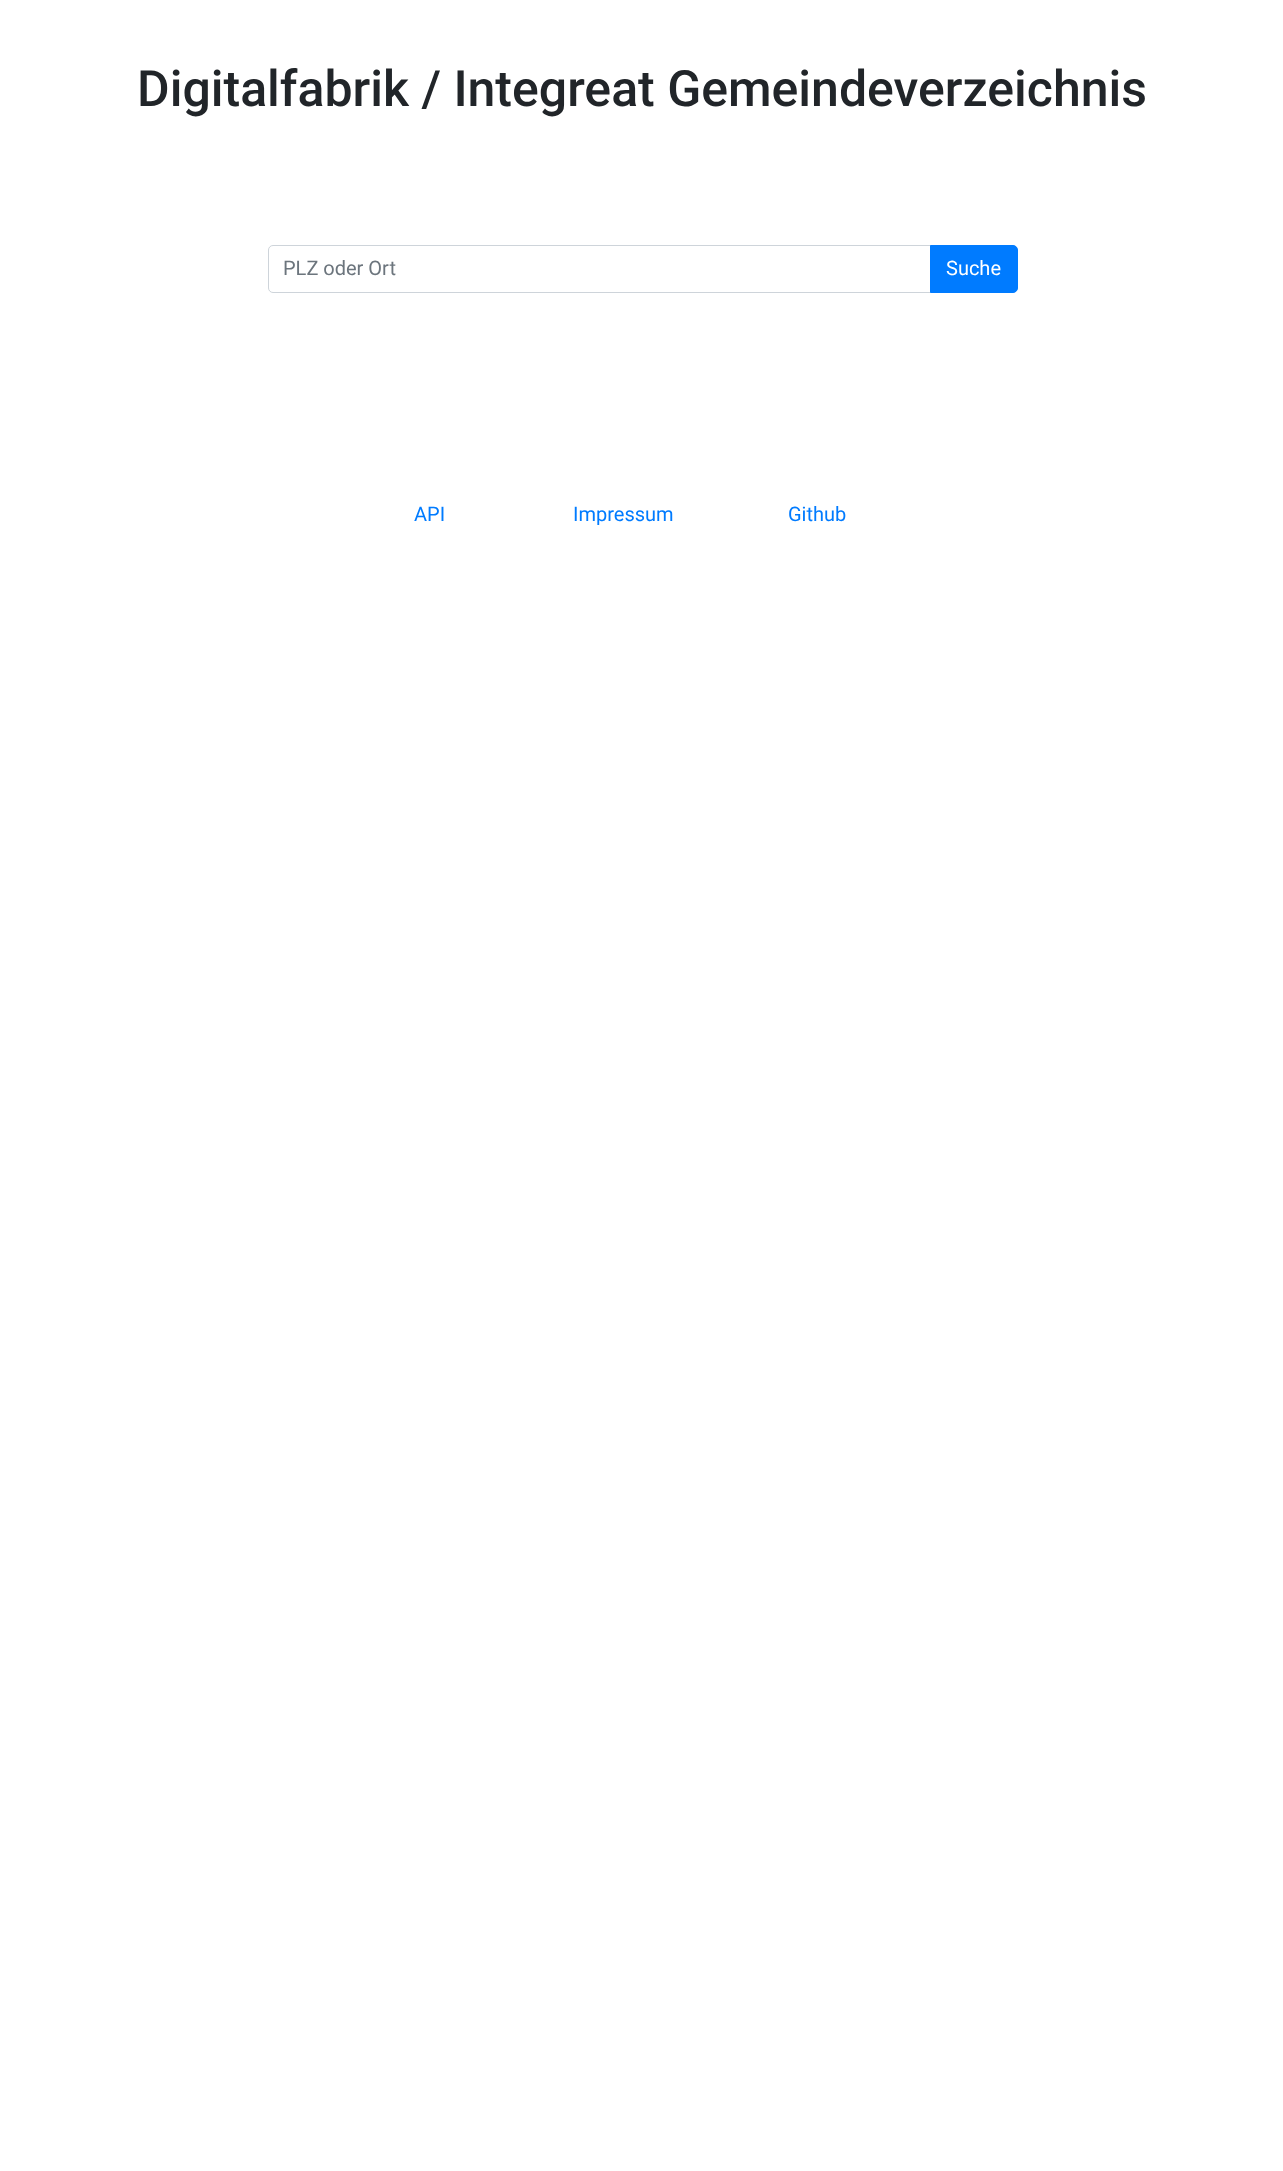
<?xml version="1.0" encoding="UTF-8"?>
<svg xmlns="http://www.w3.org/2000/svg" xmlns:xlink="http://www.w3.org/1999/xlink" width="1283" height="2171">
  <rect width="100%" height="100%" fill="#ffffff" />
  <path d="M 273 245.5 h 657.5 v 47 h -657.5 c -2.5 0 -4.5 -2 -4.5 -4.5 v -38 c 0 -2.5 2 -4.5 4.5 -4.5 z" fill="none" stroke="#ced4da" />
  <path d="M 930.5 245.5 h 82.5 c 2.5 0 4.5 2 4.5 4.5 v 38 c 0 2.5 -2 4.5 -4.5 4.5 h -82.5 z" fill="#007bff" stroke="#007bff" />
  <text x="137" y="106" style="font-family: Roboto; font-size: 50px; font-weight: 500; fill: #212529">Digitalfabrik / Integreat Gemeindeverzeichnis</text>
  <text x="283" y="275" style="font-family: Roboto; font-size: 20px; fill: #6c757d">PLZ oder Ort</text>
  <text x="946" y="275" style="font-family: Roboto; font-size: 20px; fill: #ffffff">Suche</text>
  <text x="414" y="521" style="font-family: Roboto; font-size: 20px; fill: #007bff">API</text>
  <text x="573" y="521" style="font-family: Roboto; font-size: 20px; fill: #007bff">Impressum</text>
  <text x="788" y="521" style="font-family: Roboto; font-size: 20px; fill: #007bff">Github</text>
</svg>
